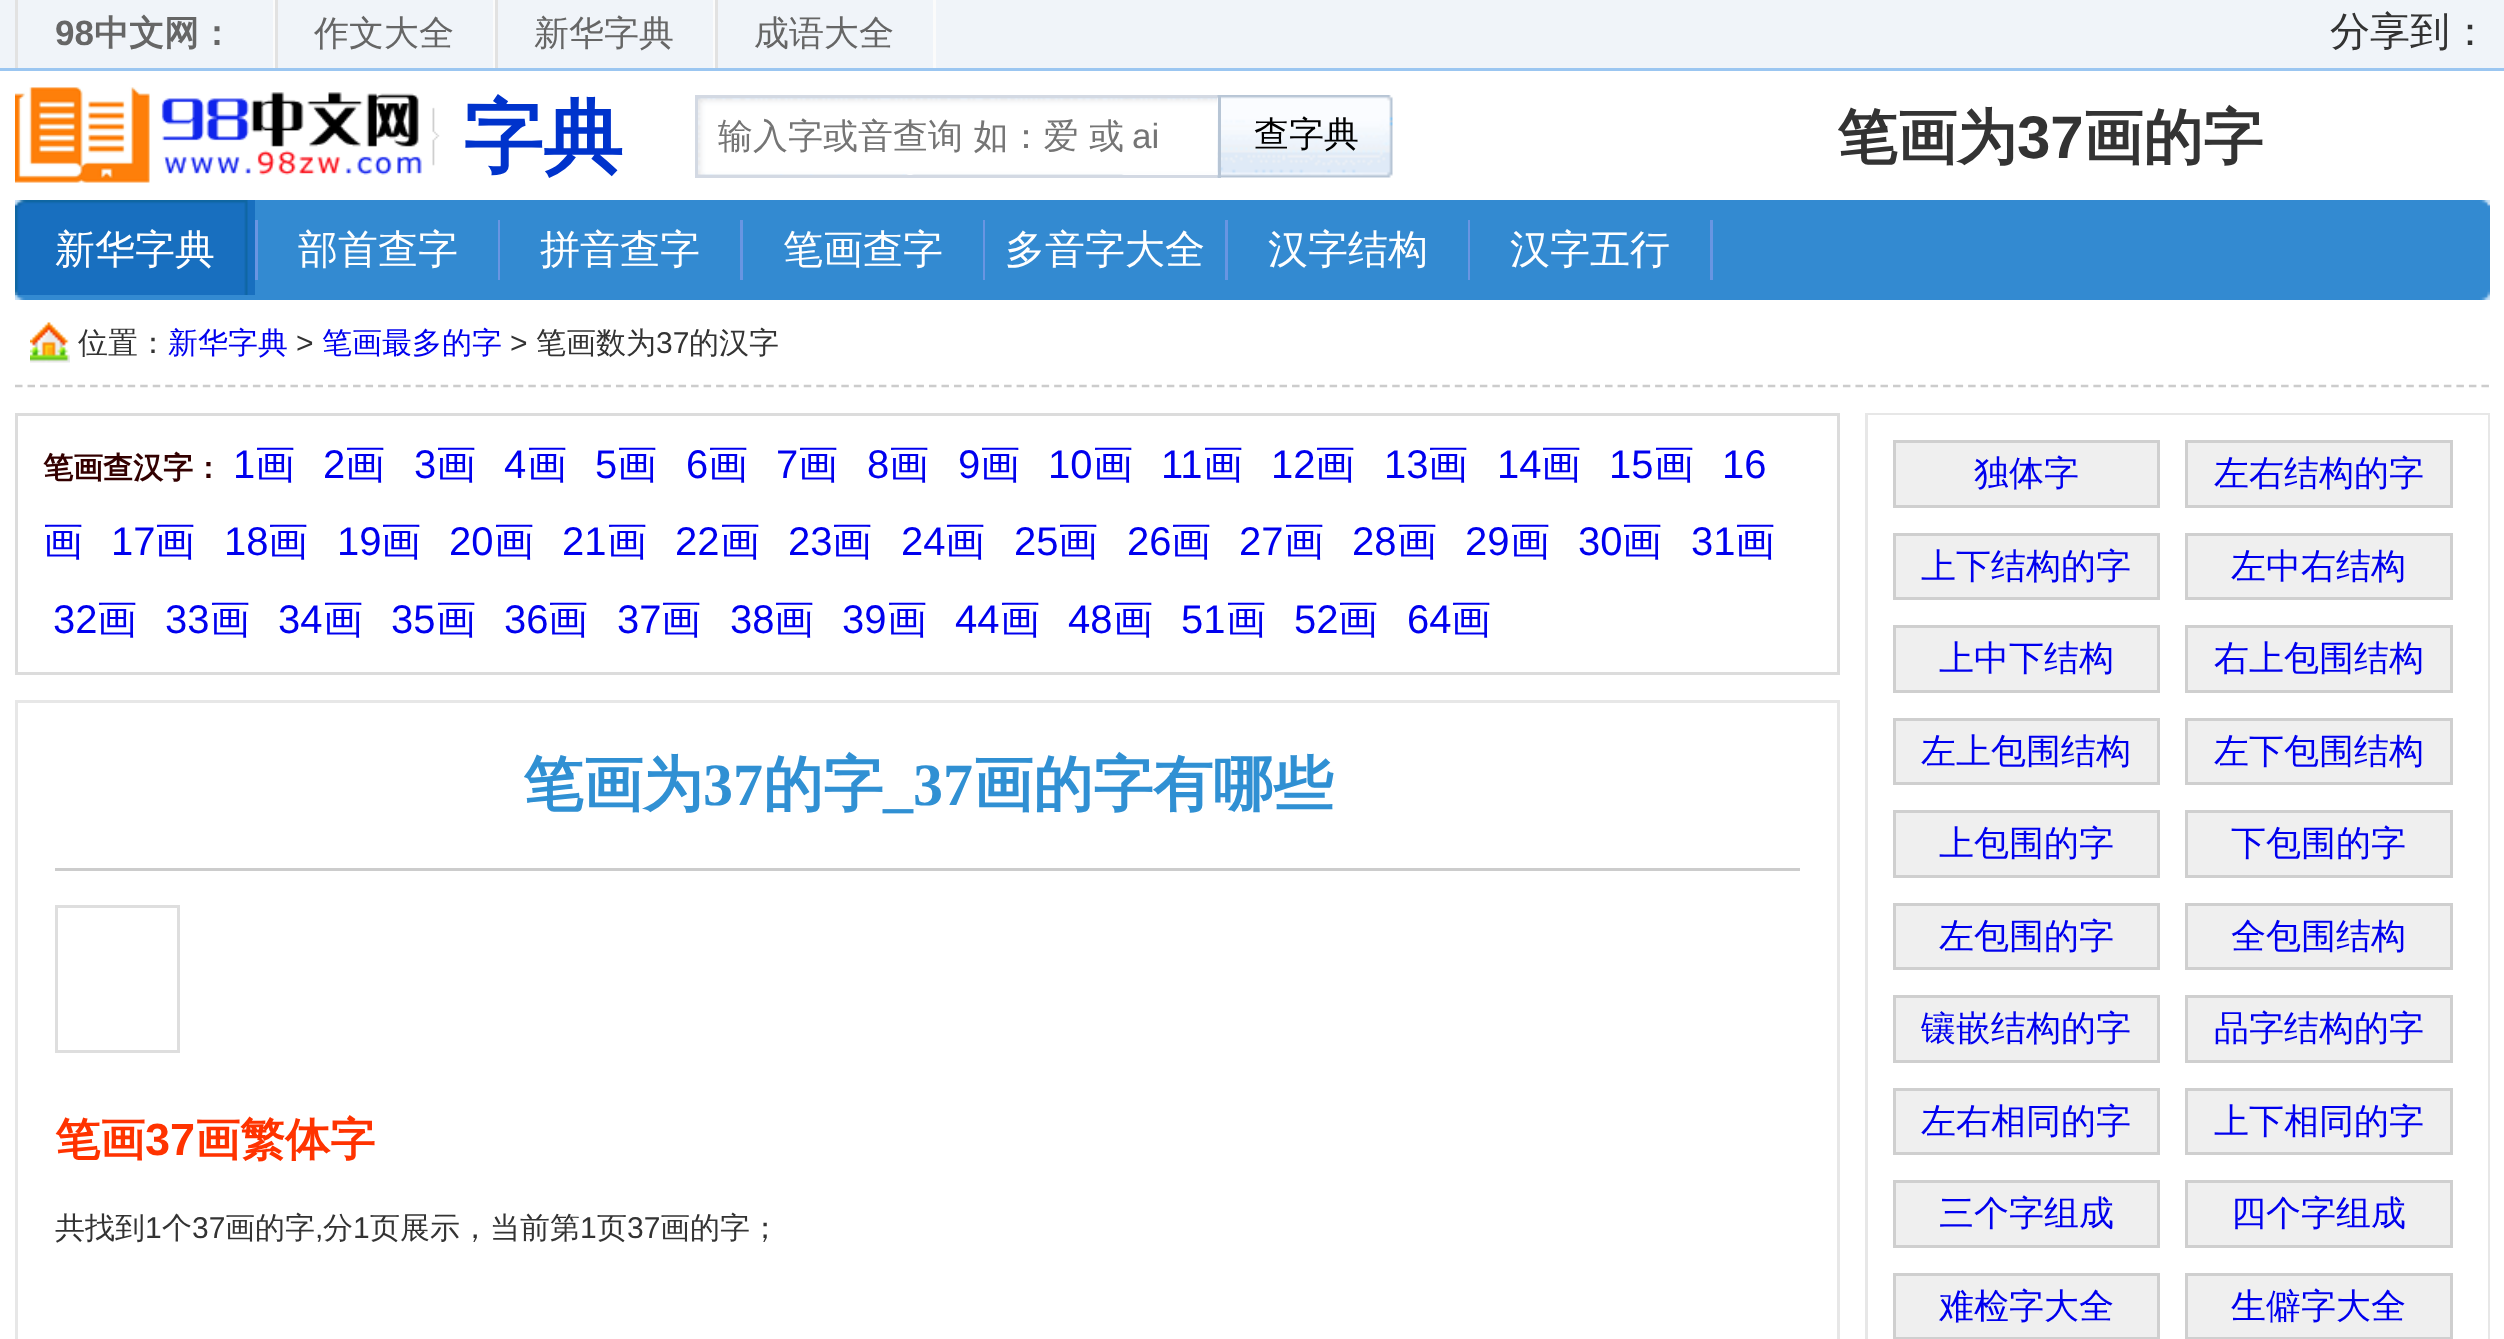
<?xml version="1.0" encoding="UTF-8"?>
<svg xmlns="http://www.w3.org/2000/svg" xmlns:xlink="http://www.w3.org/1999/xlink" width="2504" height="1339">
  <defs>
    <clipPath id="clip1"><rect x="718" y="115" width="500" height="45" /></clipPath>
  </defs>
  <rect width="100%" height="100%" fill="#ffffff" />
  <rect width="2504" height="68" fill="#f0f4f9" />
  <rect y="68" width="2504" height="3" fill="#9bc6f1" />
  <rect x="273" width="2" height="68" fill="#fbfbfb" />
  <rect x="15" width="3" height="68" fill="#e2e2e2" />
  <rect x="493" width="2" height="68" fill="#fbfbfb" />
  <rect x="275" width="3" height="68" fill="#e2e2e2" />
  <rect x="713" width="2" height="68" fill="#fbfbfb" />
  <rect x="495" width="3" height="68" fill="#e2e2e2" />
  <rect x="933" width="3" height="68" fill="#fbfbfb" />
  <rect x="715" width="3" height="68" fill="#e2e2e2" />
  <image x="15" y="87" width="425" height="96" xlink:href="image1.png" />
  <image x="698" y="98" width="520" height="77" xlink:href="image2.png" />
  <rect x="695" y="95" width="523" height="3" fill="#d3d9e3" />
  <rect x="695" y="175" width="523" height="3" fill="#d3d9e3" />
  <rect x="695" y="95" width="3" height="83" fill="#d3d9e3" />
  <image x="1217" y="95" width="176" height="83" xlink:href="image3.png" />
  <rect x="1218" y="95" width="3" height="83" fill="#b7c5d5" />
  <rect x="25" y="200" width="2455" height="100" fill="#338ad1" />
  <image x="15" y="295" width="10" height="5" xlink:href="image4.png" />
  <rect x="246" y="200" width="9" height="95" fill="#186fbf" />
  <image x="15" y="200" width="233" height="95" xlink:href="image5.png" />
  <rect x="255" y="220" width="3" height="60" fill="#6995e2" />
  <rect x="498" y="220" width="2" height="60" fill="#6995e2" />
  <rect x="740" y="220" width="3" height="60" fill="#6995e2" />
  <rect x="983" y="220" width="2" height="60" fill="#6995e2" />
  <rect x="1225" y="220" width="3" height="60" fill="#6995e2" />
  <rect x="1468" y="220" width="2" height="60" fill="#6995e2" />
  <rect x="1710" y="220" width="3" height="60" fill="#6995e2" />
  <image x="2480" y="200" width="10" height="100" xlink:href="image6.png" />
  <path d="M 15 386 h 2475" fill="none" stroke="#cccccc" stroke-width="2.5" stroke-dasharray="7.5 5.02" />
  <image x="30" y="322" width="40" height="41" xlink:href="image7.png" />
  <rect x="16.5" y="414.5" width="1822" height="259" fill="none" stroke="#dcdcdc" stroke-width="3" />
  <rect x="16.5" y="701.5" width="1822" height="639" fill="none" stroke="#e7e7e7" stroke-width="3" />
  <rect x="55" y="868" width="1745" height="3" fill="#cccccc" />
  <rect x="56.5" y="906.5" width="122" height="145" fill="none" stroke="#dedede" stroke-width="3" />
  <rect x="1866.5" y="414.5" width="622" height="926" fill="none" stroke="#e7e7e7" stroke-width="3" />
  <rect x="1868" y="415" width="620" height="924" fill="#ffffff" />
  <rect x="1894.5" y="441.5" width="264" height="65" fill="#efefef" stroke="#cfcfcf" stroke-width="3" />
  <rect x="2186.5" y="441.5" width="265" height="65" fill="#efefef" stroke="#cfcfcf" stroke-width="3" />
  <rect x="1894.5" y="534.5" width="264" height="64" fill="#efefef" stroke="#cfcfcf" stroke-width="3" />
  <rect x="2186.5" y="534.5" width="265" height="64" fill="#efefef" stroke="#cfcfcf" stroke-width="3" />
  <rect x="1894.5" y="626.5" width="264" height="65" fill="#efefef" stroke="#cfcfcf" stroke-width="3" />
  <rect x="2186.5" y="626.5" width="265" height="65" fill="#efefef" stroke="#cfcfcf" stroke-width="3" />
  <rect x="1894.5" y="719.5" width="264" height="64" fill="#efefef" stroke="#cfcfcf" stroke-width="3" />
  <rect x="2186.5" y="719.5" width="265" height="64" fill="#efefef" stroke="#cfcfcf" stroke-width="3" />
  <rect x="1894.5" y="811.5" width="264" height="65" fill="#efefef" stroke="#cfcfcf" stroke-width="3" />
  <rect x="2186.5" y="811.5" width="265" height="65" fill="#efefef" stroke="#cfcfcf" stroke-width="3" />
  <rect x="1894.5" y="904.5" width="264" height="64" fill="#efefef" stroke="#cfcfcf" stroke-width="3" />
  <rect x="2186.5" y="904.5" width="265" height="64" fill="#efefef" stroke="#cfcfcf" stroke-width="3" />
  <rect x="1894.5" y="996.5" width="264" height="65" fill="#efefef" stroke="#cfcfcf" stroke-width="3" />
  <rect x="2186.5" y="996.5" width="265" height="65" fill="#efefef" stroke="#cfcfcf" stroke-width="3" />
  <rect x="1894.5" y="1089.5" width="264" height="64" fill="#efefef" stroke="#cfcfcf" stroke-width="3" />
  <rect x="2186.5" y="1089.5" width="265" height="64" fill="#efefef" stroke="#cfcfcf" stroke-width="3" />
  <rect x="1894.5" y="1181.5" width="264" height="65" fill="#efefef" stroke="#cfcfcf" stroke-width="3" />
  <rect x="2186.5" y="1181.5" width="265" height="65" fill="#efefef" stroke="#cfcfcf" stroke-width="3" />
  <rect x="1894.5" y="1274.5" width="264" height="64" fill="#efefef" stroke="#cfcfcf" stroke-width="3" />
  <rect x="2186.5" y="1274.5" width="265" height="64" fill="#efefef" stroke="#cfcfcf" stroke-width="3" />
  <text x="55" y="45" style="font-family: Liberation Sans; font-size: 35px; font-weight: bold; fill: #666666">98</text>
  <text x="94" y="45" style="font-family: WenQuanYi Zen Hei; font-size: 35px; font-weight: bold; fill: #666666">中文网：</text>
  <text x="314" y="45" style="font-family: WenQuanYi Zen Hei; font-size: 35px; font-weight: 500; fill: #666666">作文大全</text>
  <text x="534" y="45" style="font-family: WenQuanYi Zen Hei; font-size: 35px; font-weight: 500; fill: #666666">新华字典</text>
  <text x="754" y="45" style="font-family: WenQuanYi Zen Hei; font-size: 35px; font-weight: 500; fill: #666666">成语大全</text>
  <text x="2330" y="45" style="font-family: WenQuanYi Zen Hei; font-size: 40px; font-weight: 500; fill: #333333">分享到：</text>
  <text x="463" y="165" style="font-family: WenQuanYi Zen Hei; font-size: 80px; font-weight: bold; fill: #0033cc">字典</text>
  <g clip-path="url(#clip1)">
    <text x="718" y="148" style="font-family: WenQuanYi Zen Hei; font-size: 35px; font-weight: 500; fill: #757575">输入字或音查询 如：爱 或</text>
  </g>
  <text x="1132" y="148" style="font-family: Liberation Sans; font-size: 35px; fill: #757575">ai</text>
  <text x="1254" y="146" style="font-family: WenQuanYi Zen Hei; font-size: 35px; font-weight: 500; fill: #000000">查字典</text>
  <text x="1837" y="158" style="font-family: WenQuanYi Zen Hei; font-size: 60px; font-weight: bold; fill: #333333">笔画为</text>
  <text x="2017" y="158" style="font-family: Liberation Sans; font-size: 60px; font-weight: bold; fill: #333333">37</text>
  <text x="2083" y="158" style="font-family: WenQuanYi Zen Hei; font-size: 60px; font-weight: bold; fill: #333333">画的字</text>
  <text x="55" y="263" style="font-family: WenQuanYi Zen Hei; font-size: 40px; font-weight: 500; fill: #ffffff">新华字典</text>
  <text x="298" y="263" style="font-family: WenQuanYi Zen Hei; font-size: 40px; font-weight: 500; fill: #ffffff">部首查字</text>
  <text x="540" y="263" style="font-family: WenQuanYi Zen Hei; font-size: 40px; font-weight: 500; fill: #ffffff">拼音查字</text>
  <text x="783" y="263" style="font-family: WenQuanYi Zen Hei; font-size: 40px; font-weight: 500; fill: #ffffff">笔画查字</text>
  <text x="1005" y="263" style="font-family: WenQuanYi Zen Hei; font-size: 40px; font-weight: 500; fill: #ffffff">多音字大全</text>
  <text x="1268" y="263" style="font-family: WenQuanYi Zen Hei; font-size: 40px; font-weight: 500; fill: #ffffff">汉字结构</text>
  <text x="1510" y="263" style="font-family: WenQuanYi Zen Hei; font-size: 40px; font-weight: 500; fill: #ffffff">汉字五行</text>
  <text x="78" y="353" style="font-family: WenQuanYi Zen Hei; font-size: 30px; font-weight: 500; fill: #333333">位置：</text>
  <text x="168" y="353" style="font-family: WenQuanYi Zen Hei; font-size: 30px; font-weight: 500; fill: #0000ee">新华字典</text>
  <text x="296" y="353" style="font-family: Liberation Sans; font-size: 30px; fill: #333333">&gt;</text>
  <text x="322" y="353" style="font-family: WenQuanYi Zen Hei; font-size: 30px; font-weight: 500; fill: #0000ee">笔画最多的字</text>
  <text x="510" y="353" style="font-family: Liberation Sans; font-size: 30px; fill: #333333">&gt;</text>
  <text x="536" y="353" style="font-family: WenQuanYi Zen Hei; font-size: 30px; font-weight: 500; fill: #333333">笔画数为</text>
  <text x="656" y="353" style="font-family: Liberation Sans; font-size: 30px; fill: #333333">37</text>
  <text x="689" y="353" style="font-family: WenQuanYi Zen Hei; font-size: 30px; font-weight: 500; fill: #333333">的汉字</text>
  <text x="43" y="478" style="font-family: WenQuanYi Zen Hei; font-size: 30px; font-weight: bold; fill: #330000">笔画查汉字：</text>
  <text x="233" y="478" style="font-family: Liberation Sans; font-size: 40px; fill: #0000ee">1</text>
  <text x="255" y="478" style="font-family: WenQuanYi Zen Hei; font-size: 40px; font-weight: 500; fill: #0000ee">画</text>
  <text x="323" y="478" style="font-family: Liberation Sans; font-size: 40px; fill: #0000ee">2</text>
  <text x="345" y="478" style="font-family: WenQuanYi Zen Hei; font-size: 40px; font-weight: 500; fill: #0000ee">画</text>
  <text x="414" y="478" style="font-family: Liberation Sans; font-size: 40px; fill: #0000ee">3</text>
  <text x="436" y="478" style="font-family: WenQuanYi Zen Hei; font-size: 40px; font-weight: 500; fill: #0000ee">画</text>
  <text x="504" y="478" style="font-family: Liberation Sans; font-size: 40px; fill: #0000ee">4</text>
  <text x="527" y="478" style="font-family: WenQuanYi Zen Hei; font-size: 40px; font-weight: 500; fill: #0000ee">画</text>
  <text x="595" y="478" style="font-family: Liberation Sans; font-size: 40px; fill: #0000ee">5</text>
  <text x="617" y="478" style="font-family: WenQuanYi Zen Hei; font-size: 40px; font-weight: 500; fill: #0000ee">画</text>
  <text x="686" y="478" style="font-family: Liberation Sans; font-size: 40px; fill: #0000ee">6</text>
  <text x="708" y="478" style="font-family: WenQuanYi Zen Hei; font-size: 40px; font-weight: 500; fill: #0000ee">画</text>
  <text x="776" y="478" style="font-family: Liberation Sans; font-size: 40px; fill: #0000ee">7</text>
  <text x="798" y="478" style="font-family: WenQuanYi Zen Hei; font-size: 40px; font-weight: 500; fill: #0000ee">画</text>
  <text x="867" y="478" style="font-family: Liberation Sans; font-size: 40px; fill: #0000ee">8</text>
  <text x="889" y="478" style="font-family: WenQuanYi Zen Hei; font-size: 40px; font-weight: 500; fill: #0000ee">画</text>
  <text x="958" y="478" style="font-family: Liberation Sans; font-size: 40px; fill: #0000ee">9</text>
  <text x="980" y="478" style="font-family: WenQuanYi Zen Hei; font-size: 40px; font-weight: 500; fill: #0000ee">画</text>
  <text x="1048" y="478" style="font-family: Liberation Sans; font-size: 40px; fill: #0000ee">10</text>
  <text x="1093" y="478" style="font-family: WenQuanYi Zen Hei; font-size: 40px; font-weight: 500; fill: #0000ee">画</text>
  <text x="1161" y="478" style="font-family: Liberation Sans; font-size: 40px; fill: #0000ee">11</text>
  <text x="1203" y="478" style="font-family: WenQuanYi Zen Hei; font-size: 40px; font-weight: 500; fill: #0000ee">画</text>
  <text x="1271" y="478" style="font-family: Liberation Sans; font-size: 40px; fill: #0000ee">12</text>
  <text x="1315" y="478" style="font-family: WenQuanYi Zen Hei; font-size: 40px; font-weight: 500; fill: #0000ee">画</text>
  <text x="1384" y="478" style="font-family: Liberation Sans; font-size: 40px; fill: #0000ee">13</text>
  <text x="1428" y="478" style="font-family: WenQuanYi Zen Hei; font-size: 40px; font-weight: 500; fill: #0000ee">画</text>
  <text x="1497" y="478" style="font-family: Liberation Sans; font-size: 40px; fill: #0000ee">14</text>
  <text x="1541" y="478" style="font-family: WenQuanYi Zen Hei; font-size: 40px; font-weight: 500; fill: #0000ee">画</text>
  <text x="1609" y="478" style="font-family: Liberation Sans; font-size: 40px; fill: #0000ee">15</text>
  <text x="1654" y="478" style="font-family: WenQuanYi Zen Hei; font-size: 40px; font-weight: 500; fill: #0000ee">画</text>
  <text x="1722" y="478" style="font-family: Liberation Sans; font-size: 40px; fill: #0000ee">16</text>
  <text x="43" y="555" style="font-family: WenQuanYi Zen Hei; font-size: 40px; font-weight: 500; fill: #0000ee">画</text>
  <text x="111" y="555" style="font-family: Liberation Sans; font-size: 40px; fill: #0000ee">17</text>
  <text x="155" y="555" style="font-family: WenQuanYi Zen Hei; font-size: 40px; font-weight: 500; fill: #0000ee">画</text>
  <text x="224" y="555" style="font-family: Liberation Sans; font-size: 40px; fill: #0000ee">18</text>
  <text x="268" y="555" style="font-family: WenQuanYi Zen Hei; font-size: 40px; font-weight: 500; fill: #0000ee">画</text>
  <text x="337" y="555" style="font-family: Liberation Sans; font-size: 40px; fill: #0000ee">19</text>
  <text x="381" y="555" style="font-family: WenQuanYi Zen Hei; font-size: 40px; font-weight: 500; fill: #0000ee">画</text>
  <text x="449" y="555" style="font-family: Liberation Sans; font-size: 40px; fill: #0000ee">20</text>
  <text x="494" y="555" style="font-family: WenQuanYi Zen Hei; font-size: 40px; font-weight: 500; fill: #0000ee">画</text>
  <text x="562" y="555" style="font-family: Liberation Sans; font-size: 40px; fill: #0000ee">21</text>
  <text x="607" y="555" style="font-family: WenQuanYi Zen Hei; font-size: 40px; font-weight: 500; fill: #0000ee">画</text>
  <text x="675" y="555" style="font-family: Liberation Sans; font-size: 40px; fill: #0000ee">22</text>
  <text x="720" y="555" style="font-family: WenQuanYi Zen Hei; font-size: 40px; font-weight: 500; fill: #0000ee">画</text>
  <text x="788" y="555" style="font-family: Liberation Sans; font-size: 40px; fill: #0000ee">23</text>
  <text x="832" y="555" style="font-family: WenQuanYi Zen Hei; font-size: 40px; font-weight: 500; fill: #0000ee">画</text>
  <text x="901" y="555" style="font-family: Liberation Sans; font-size: 40px; fill: #0000ee">24</text>
  <text x="945" y="555" style="font-family: WenQuanYi Zen Hei; font-size: 40px; font-weight: 500; fill: #0000ee">画</text>
  <text x="1014" y="555" style="font-family: Liberation Sans; font-size: 40px; fill: #0000ee">25</text>
  <text x="1058" y="555" style="font-family: WenQuanYi Zen Hei; font-size: 40px; font-weight: 500; fill: #0000ee">画</text>
  <text x="1127" y="555" style="font-family: Liberation Sans; font-size: 40px; fill: #0000ee">26</text>
  <text x="1171" y="555" style="font-family: WenQuanYi Zen Hei; font-size: 40px; font-weight: 500; fill: #0000ee">画</text>
  <text x="1239" y="555" style="font-family: Liberation Sans; font-size: 40px; fill: #0000ee">27</text>
  <text x="1284" y="555" style="font-family: WenQuanYi Zen Hei; font-size: 40px; font-weight: 500; fill: #0000ee">画</text>
  <text x="1352" y="555" style="font-family: Liberation Sans; font-size: 40px; fill: #0000ee">28</text>
  <text x="1397" y="555" style="font-family: WenQuanYi Zen Hei; font-size: 40px; font-weight: 500; fill: #0000ee">画</text>
  <text x="1465" y="555" style="font-family: Liberation Sans; font-size: 40px; fill: #0000ee">29</text>
  <text x="1510" y="555" style="font-family: WenQuanYi Zen Hei; font-size: 40px; font-weight: 500; fill: #0000ee">画</text>
  <text x="1578" y="555" style="font-family: Liberation Sans; font-size: 40px; fill: #0000ee">30</text>
  <text x="1622" y="555" style="font-family: WenQuanYi Zen Hei; font-size: 40px; font-weight: 500; fill: #0000ee">画</text>
  <text x="1691" y="555" style="font-family: Liberation Sans; font-size: 40px; fill: #0000ee">31</text>
  <text x="1735" y="555" style="font-family: WenQuanYi Zen Hei; font-size: 40px; font-weight: 500; fill: #0000ee">画</text>
  <text x="53" y="633" style="font-family: Liberation Sans; font-size: 40px; fill: #0000ee">32</text>
  <text x="97" y="633" style="font-family: WenQuanYi Zen Hei; font-size: 40px; font-weight: 500; fill: #0000ee">画</text>
  <text x="165" y="633" style="font-family: Liberation Sans; font-size: 40px; fill: #0000ee">33</text>
  <text x="210" y="633" style="font-family: WenQuanYi Zen Hei; font-size: 40px; font-weight: 500; fill: #0000ee">画</text>
  <text x="278" y="633" style="font-family: Liberation Sans; font-size: 40px; fill: #0000ee">34</text>
  <text x="323" y="633" style="font-family: WenQuanYi Zen Hei; font-size: 40px; font-weight: 500; fill: #0000ee">画</text>
  <text x="391" y="633" style="font-family: Liberation Sans; font-size: 40px; fill: #0000ee">35</text>
  <text x="436" y="633" style="font-family: WenQuanYi Zen Hei; font-size: 40px; font-weight: 500; fill: #0000ee">画</text>
  <text x="504" y="633" style="font-family: Liberation Sans; font-size: 40px; fill: #0000ee">36</text>
  <text x="548" y="633" style="font-family: WenQuanYi Zen Hei; font-size: 40px; font-weight: 500; fill: #0000ee">画</text>
  <text x="617" y="633" style="font-family: Liberation Sans; font-size: 40px; fill: #0000ee">37</text>
  <text x="661" y="633" style="font-family: WenQuanYi Zen Hei; font-size: 40px; font-weight: 500; fill: #0000ee">画</text>
  <text x="730" y="633" style="font-family: Liberation Sans; font-size: 40px; fill: #0000ee">38</text>
  <text x="774" y="633" style="font-family: WenQuanYi Zen Hei; font-size: 40px; font-weight: 500; fill: #0000ee">画</text>
  <text x="842" y="633" style="font-family: Liberation Sans; font-size: 40px; fill: #0000ee">39</text>
  <text x="887" y="633" style="font-family: WenQuanYi Zen Hei; font-size: 40px; font-weight: 500; fill: #0000ee">画</text>
  <text x="955" y="633" style="font-family: Liberation Sans; font-size: 40px; fill: #0000ee">44</text>
  <text x="1000" y="633" style="font-family: WenQuanYi Zen Hei; font-size: 40px; font-weight: 500; fill: #0000ee">画</text>
  <text x="1068" y="633" style="font-family: Liberation Sans; font-size: 40px; fill: #0000ee">48</text>
  <text x="1113" y="633" style="font-family: WenQuanYi Zen Hei; font-size: 40px; font-weight: 500; fill: #0000ee">画</text>
  <text x="1181" y="633" style="font-family: Liberation Sans; font-size: 40px; fill: #0000ee">51</text>
  <text x="1226" y="633" style="font-family: WenQuanYi Zen Hei; font-size: 40px; font-weight: 500; fill: #0000ee">画</text>
  <text x="1294" y="633" style="font-family: Liberation Sans; font-size: 40px; fill: #0000ee">52</text>
  <text x="1338" y="633" style="font-family: WenQuanYi Zen Hei; font-size: 40px; font-weight: 500; fill: #0000ee">画</text>
  <text x="1407" y="633" style="font-family: Liberation Sans; font-size: 40px; fill: #0000ee">64</text>
  <text x="1451" y="633" style="font-family: WenQuanYi Zen Hei; font-size: 40px; font-weight: 500; fill: #0000ee">画</text>
  <text x="523" y="805" style="font-family: WenQuanYi Zen Hei; font-size: 60px; font-weight: bold; fill: #3090d3">笔画为</text>
  <text x="703" y="805" style="font-family: Liberation Serif; font-size: 60px; font-weight: bold; fill: #3090d3">37</text>
  <text x="763" y="805" style="font-family: WenQuanYi Zen Hei; font-size: 60px; font-weight: bold; fill: #3090d3">的字</text>
  <text x="883" y="805" style="font-family: Liberation Serif; font-size: 60px; font-weight: bold; fill: #3090d3">_37</text>
  <text x="973" y="805" style="font-family: WenQuanYi Zen Hei; font-size: 60px; font-weight: bold; fill: #3090d3">画的字有哪些</text>
  <text x="55" y="1155" style="font-family: WenQuanYi Zen Hei; font-size: 45px; font-weight: bold; fill: #ff3300">笔画</text>
  <text x="145" y="1155" style="font-family: Liberation Sans; font-size: 45px; font-weight: bold; fill: #ff3300">37</text>
  <text x="195" y="1155" style="font-family: WenQuanYi Zen Hei; font-size: 45px; font-weight: bold; fill: #ff3300">画繁体字</text>
  <text x="55" y="1238" style="font-family: WenQuanYi Zen Hei; font-size: 30px; font-weight: 500; fill: #333333">共找到</text>
  <text x="145" y="1238" style="font-family: Liberation Sans; font-size: 30px; fill: #333333">1</text>
  <text x="162" y="1238" style="font-family: WenQuanYi Zen Hei; font-size: 30px; font-weight: 500; fill: #333333">个</text>
  <text x="192" y="1238" style="font-family: Liberation Sans; font-size: 30px; fill: #333333">37</text>
  <text x="225" y="1238" style="font-family: WenQuanYi Zen Hei; font-size: 30px; font-weight: 500; fill: #333333">画的字</text>
  <text x="315" y="1238" style="font-family: Liberation Sans; font-size: 30px; fill: #333333">,</text>
  <text x="323" y="1238" style="font-family: WenQuanYi Zen Hei; font-size: 30px; font-weight: 500; fill: #333333">分</text>
  <text x="353" y="1238" style="font-family: Liberation Sans; font-size: 30px; fill: #333333">1</text>
  <text x="370" y="1238" style="font-family: WenQuanYi Zen Hei; font-size: 30px; font-weight: 500; fill: #333333">页展示，当前第</text>
  <text x="580" y="1238" style="font-family: Liberation Sans; font-size: 30px; fill: #333333">1</text>
  <text x="597" y="1238" style="font-family: WenQuanYi Zen Hei; font-size: 30px; font-weight: 500; fill: #333333">页</text>
  <text x="627" y="1238" style="font-family: Liberation Sans; font-size: 30px; fill: #333333">37</text>
  <text x="660" y="1238" style="font-family: WenQuanYi Zen Hei; font-size: 30px; font-weight: 500; fill: #333333">画的字；</text>
  <text x="1974" y="485" style="font-family: WenQuanYi Zen Hei; font-size: 35px; font-weight: 500; fill: #0000ee">独体字</text>
  <text x="2214" y="485" style="font-family: WenQuanYi Zen Hei; font-size: 35px; font-weight: 500; fill: #0000ee">左右结构的字</text>
  <text x="1921" y="578" style="font-family: WenQuanYi Zen Hei; font-size: 35px; font-weight: 500; fill: #0000ee">上下结构的字</text>
  <text x="2231" y="578" style="font-family: WenQuanYi Zen Hei; font-size: 35px; font-weight: 500; fill: #0000ee">左中右结构</text>
  <text x="1939" y="670" style="font-family: WenQuanYi Zen Hei; font-size: 35px; font-weight: 500; fill: #0000ee">上中下结构</text>
  <text x="2214" y="670" style="font-family: WenQuanYi Zen Hei; font-size: 35px; font-weight: 500; fill: #0000ee">右上包围结构</text>
  <text x="1921" y="763" style="font-family: WenQuanYi Zen Hei; font-size: 35px; font-weight: 500; fill: #0000ee">左上包围结构</text>
  <text x="2214" y="763" style="font-family: WenQuanYi Zen Hei; font-size: 35px; font-weight: 500; fill: #0000ee">左下包围结构</text>
  <text x="1939" y="855" style="font-family: WenQuanYi Zen Hei; font-size: 35px; font-weight: 500; fill: #0000ee">上包围的字</text>
  <text x="2231" y="855" style="font-family: WenQuanYi Zen Hei; font-size: 35px; font-weight: 500; fill: #0000ee">下包围的字</text>
  <text x="1939" y="948" style="font-family: WenQuanYi Zen Hei; font-size: 35px; font-weight: 500; fill: #0000ee">左包围的字</text>
  <text x="2231" y="948" style="font-family: WenQuanYi Zen Hei; font-size: 35px; font-weight: 500; fill: #0000ee">全包围结构</text>
  <text x="1921" y="1040" style="font-family: WenQuanYi Zen Hei; font-size: 35px; font-weight: 500; fill: #0000ee">镶嵌结构的字</text>
  <text x="2214" y="1040" style="font-family: WenQuanYi Zen Hei; font-size: 35px; font-weight: 500; fill: #0000ee">品字结构的字</text>
  <text x="1921" y="1133" style="font-family: WenQuanYi Zen Hei; font-size: 35px; font-weight: 500; fill: #0000ee">左右相同的字</text>
  <text x="2214" y="1133" style="font-family: WenQuanYi Zen Hei; font-size: 35px; font-weight: 500; fill: #0000ee">上下相同的字</text>
  <text x="1939" y="1225" style="font-family: WenQuanYi Zen Hei; font-size: 35px; font-weight: 500; fill: #0000ee">三个字组成</text>
  <text x="2231" y="1225" style="font-family: WenQuanYi Zen Hei; font-size: 35px; font-weight: 500; fill: #0000ee">四个字组成</text>
  <text x="1939" y="1318" style="font-family: WenQuanYi Zen Hei; font-size: 35px; font-weight: 500; fill: #0000ee">难检字大全</text>
  <text x="2231" y="1318" style="font-family: WenQuanYi Zen Hei; font-size: 35px; font-weight: 500; fill: #0000ee">生僻字大全</text>
</svg>
